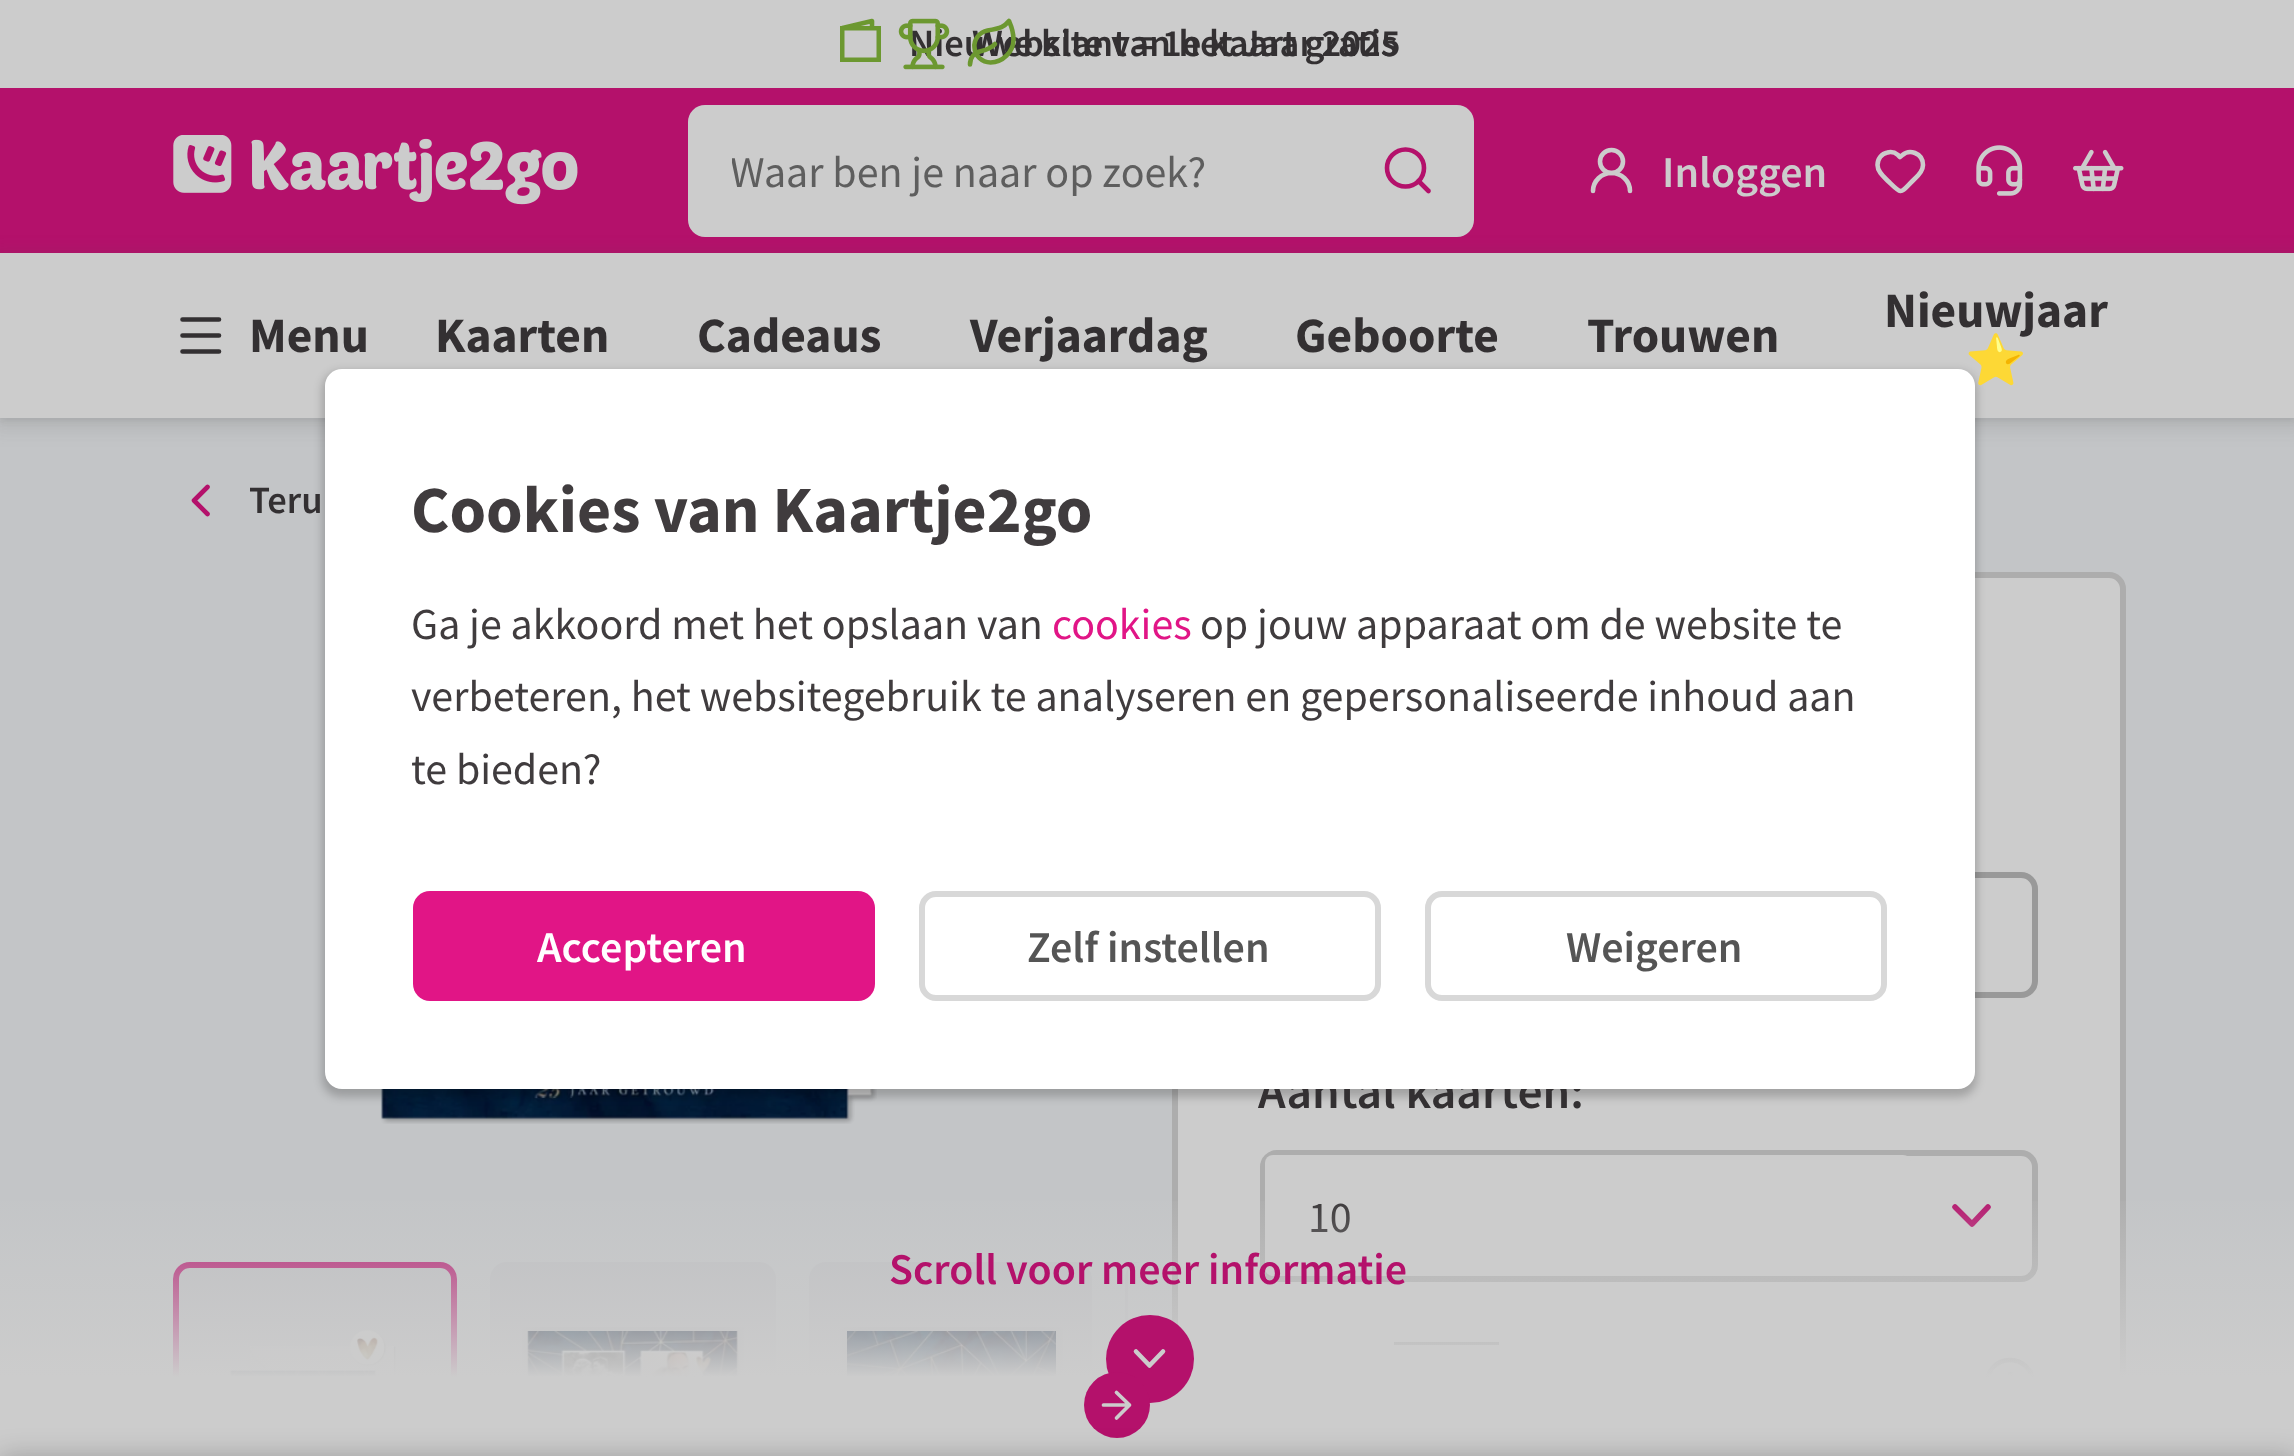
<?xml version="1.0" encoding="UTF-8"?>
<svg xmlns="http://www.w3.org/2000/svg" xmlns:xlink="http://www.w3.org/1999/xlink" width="2294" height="1456">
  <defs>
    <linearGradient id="g1" gradientUnits="userSpaceOnUse" x1="632" y1="1331" x2="642" y2="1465"><stop offset="0" stop-color="#000000" stop-opacity="0.2" /><stop offset="1" stop-color="#000000" stop-opacity="0" /></linearGradient>
    <clipPath id="clip1"><rect x="732" y="143" width="588" height="55" /></clipPath>
    <linearGradient id="g2" gradientUnits="userSpaceOnUse" x1="1148" y1="1188" x2="1148" y2="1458"><stop offset="0" stop-color="#cccccc" stop-opacity="0" /><stop offset="0.7" stop-color="#cccccc" /></linearGradient>
  </defs>
  <rect width="100%" height="100%" fill="#cccccc" />
  <path d="M 842.5 28 l 29.5 -7 v 4.5" fill="none" stroke="#6c9830" stroke-width="4.6" stroke-linecap="round" stroke-linejoin="round" />
  <rect x="842.25" y="28.25" width="36.5" height="31.5" fill="none" stroke="#6c9830" stroke-width="4.5" />
  <rect y="88" width="2294" height="165" fill="#b4116b" />
  <image x="173" y="135" width="405" height="70" xlink:href="image2.png" />
  <rect x="688" y="105" width="786" height="132" rx="17" fill="#cccccc" />
  <path d="M 1428.5 191 l -10 -10" fill="none" stroke="#b4116b" stroke-width="4.6" stroke-linecap="round" stroke-linejoin="round" />
  <circle cx="1405.5" cy="168" r="18.5" fill="none" stroke="#b4116b" stroke-width="4.6" />
  <circle cx="1611.5" cy="161.5" r="11.5" fill="none" stroke="#cccccc" stroke-width="4.6" />
  <path d="M 1630 191 c 0 -10 -8.5 -18 -18.5 -18 c -10 0 -18.5 8 -18.5 18" fill="none" stroke="#cccccc" stroke-width="4.6" stroke-linecap="round" stroke-linejoin="round" />
  <path d="M 1877.5 165 c 0 -6 4 -11.5 10 -12.5 c 3.5 -1 7.5 0 10.5 2.5 l 2 2 l 2.5 -2 c 3.5 -3 8.5 -3.5 12.5 -2 c 5 2 8 6.5 8 12 c 0 6 -4.5 10.5 -9 14.5 c -14.5 14 -11 16 -25.5 2 c -4.5 -4.5 -11 -9.5 -11 -16.5" fill="none" stroke="#cccccc" stroke-width="4.6" stroke-linecap="round" stroke-linejoin="round" />
  <image x="1976" y="145" width="47" height="51" xlink:href="image3.png" />
  <image x="2073" y="149" width="51" height="43" xlink:href="image4.png" />
  <rect y="418" width="2294" height="958" fill="#c3c5c7" />
  <rect x="-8" y="250" width="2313" height="182" fill="#4f4f4f" fill-opacity="0.1" filter="blur(8px)" />
  <rect y="256" width="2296" height="165" fill="#353535" fill-opacity="0.1" filter="blur(3px)" />
  <rect y="253" width="2294" height="165" fill="#cccccc" />
  <path d="M 182.5 319.5 h 36.5 m -36.5 16 h 36.5 m -36.5 16 h 36.5" fill="none" stroke="#333032" stroke-width="4.6" stroke-linecap="round" stroke-linejoin="round" />
  <path d="M 207.5 514 l -13.5 -13.5 l 13.5 -13.5" fill="none" stroke="#b4116b" stroke-width="4.6" stroke-linecap="round" stroke-linejoin="round" />
  <image x="380" y="1089" width="497" height="35" xlink:href="image5.png" />
  <rect x="176" y="1265" width="278" height="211" rx="14" fill="#bebfc2" stroke="#b4116b" stroke-width="6" />
  <image x="230" y="1330" width="166" height="46" xlink:href="image6.png" />
  <rect x="490" y="1262" width="286" height="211" rx="17" fill="#bebfc2" />
  <image x="528" y="1331" width="213" height="45" xlink:href="image8.png" />
  <path d="M 528 1331 h 209 l 9 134 h -208 z" fill="url(#g1)" />
  <image x="522" y="1327" width="222" height="49" xlink:href="image7.png" />
  <rect x="809" y="1262" width="283" height="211" rx="17" fill="#bebfc2" />
  <image x="840" y="1327" width="223" height="49" xlink:href="image9.png" />
  <path d="M 1142 1262 h -14 v 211 h 14 c -9.5 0 -17 -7.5 -17 -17 v -177 c 0 -9.5 7.5 -17 17 -17 z" fill="#bebfc2" />
  <rect x="1175" y="575" width="948" height="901" rx="14" fill="#cccccc" stroke="#adadad" stroke-width="6" />
  <rect x="1661" y="875" width="374" height="120" rx="14" fill="none" stroke="#999999" stroke-width="6" />
  <rect x="1263" y="1153" width="772" height="126" rx="14" fill="none" stroke="#adadad" stroke-width="6" />
  <rect x="1265" y="1155" width="646" height="121" rx="8" fill="#cccccc" />
  <path d="M 1955 1207 l 17 17 l 16 -17" fill="none" stroke="#b4116b" stroke-width="5.5" stroke-linecap="round" stroke-linejoin="round" />
  <rect x="1394" y="1342" width="105" height="3" fill="#999999" />
  <circle cx="2010" cy="1383" r="23" fill="none" stroke="#999999" stroke-width="4.6" />
  <path d="M 2010 1374 h 0.5" fill="none" stroke="#999999" stroke-width="4.6" stroke-linecap="round" stroke-linejoin="round" />
  <rect x="322" y="371" width="1655" height="726" rx="19" fill="#000000" fill-opacity="0.2" filter="blur(4px)" />
  <text x="909" y="56" style="font-family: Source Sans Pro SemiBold; font-size: 38.5px; font-weight: 600; fill: #333032">Nieuwe klant = 1e kaart gratis</text>
  <image x="898" y="18" width="52" height="52" xlink:href="image1.png" />
  <text x="972" y="56" style="font-family: Source Sans Pro SemiBold; font-size: 38.5px; font-weight: 600; fill: #333032">Website van het Jaar 2025</text>
  <path d="M 990.5 62.5 c -8.5 0 -15.5 -6.5 -16 -15 c -1 -8 5 -15.5 13 -17 c 13.5 -2.5 16.5 -3.5 21.5 -9.5 c 2 4.5 4.5 9.5 4.5 18.5 c 0 12.5 -11 23 -23 23 z m -20.5 2 c 0 -6.5 4 -12 11.5 -13.5 c 5.5 -1 11.5 -4.5 13.5 -7" fill="none" stroke="#6c9830" stroke-width="4.6" stroke-linecap="round" stroke-linejoin="round" />
  <g clip-path="url(#clip1)">
    <text x="730" y="187" style="font-family: Source Sans Pro; font-size: 44px; fill: #5e5e5e">Waar ben je naar op zoek?</text>
  </g>
  <text x="1662" y="187" style="font-family: Source Sans Pro SemiBold; font-size: 44px; font-weight: 600; fill: #cccccc">Inloggen</text>
  <text x="249" y="352" style="font-family: Source Sans Pro; font-size: 49.5px; font-weight: bold; fill: #333032">Menu</text>
  <text x="435" y="352" style="font-family: Source Sans Pro; font-size: 49.5px; font-weight: bold; fill: #333032">Kaarten</text>
  <text x="697" y="352" style="font-family: Source Sans Pro; font-size: 49.5px; font-weight: bold; fill: #333032">Cadeaus</text>
  <text x="970" y="352" style="font-family: Source Sans Pro; font-size: 49.5px; font-weight: bold; fill: #333032">Verjaardag</text>
  <text x="1295" y="352" style="font-family: Source Sans Pro; font-size: 49.5px; font-weight: bold; fill: #333032">Geboorte</text>
  <text x="1587" y="352" style="font-family: Source Sans Pro; font-size: 49.5px; font-weight: bold; fill: #333032">Trouwen</text>
  <text x="1884" y="327" style="font-family: Source Sans Pro; font-size: 49.5px; font-weight: bold; fill: #333032">Nieuwjaar</text>
  <text x="1965" y="377" style="font-family: Noto Color Emoji; font-size: 49.5px; font-weight: bold; fill: #333032">⭐️</text>
  <text x="249" y="513" style="font-family: Source Sans Pro SemiBold; font-size: 38.5px; font-weight: 600; fill: #333032">Teru</text>
  <text x="1258" y="1108" style="font-family: Source Sans Pro SemiBold; font-size: 49.5px; font-weight: 600; fill: #333032">Aantal kaarten:</text>
  <text x="1308" y="1232" style="font-family: Source Sans Pro; font-size: 44px; fill: #333032">10</text>
  <rect y="1201" width="2294" height="255" fill="url(#g2)" />
  <text x="889" y="1284" style="font-family: Source Sans Pro SemiBold; font-size: 44px; font-weight: 600; fill: #b4116b">Scroll voor meer informatie</text>
  <circle cx="1150" cy="1359" r="44" fill="#b4116b" />
  <circle cx="1117" cy="1405" r="33" fill="#b4116b" />
  <path d="M 1103.5 1405 h 26 m -13 -12.5 l 13 12.5 l -13 13" fill="none" stroke="#cccccc" stroke-width="3.7" stroke-linecap="round" stroke-linejoin="round" />
  <path d="M 1136 1351.5 l 13.5 14 l 13.5 -14" fill="none" stroke="#cccccc" stroke-width="4.6" stroke-linecap="round" stroke-linejoin="round" />
  <rect y="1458" width="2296" height="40" fill="#000000" fill-opacity="0.25" filter="blur(14px)" />
  <rect x="325" y="369" width="1650" height="720" rx="17" fill="#ffffff" />
  <text x="411" y="532" style="font-family: Source Sans Pro; font-size: 66px; font-weight: bold; fill: #403c3e">Cookies van Kaartje2go</text>
  <text x="411" y="639" style="font-family: Source Sans Pro; font-size: 44px; fill: #403c3e">Ga je akkoord met het opslaan van</text>
  <text x="1052" y="639" style="font-family: Source Sans Pro; font-size: 44px; fill: #e11586">cookies</text>
  <text x="1200" y="639" style="font-family: Source Sans Pro; font-size: 44px; fill: #403c3e">op jouw apparaat om de website te</text>
  <text x="411" y="711" style="font-family: Source Sans Pro; font-size: 44px; fill: #403c3e">verbeteren, het websitegebruik te analyseren en gepersonaliseerde inhoud aan</text>
  <text x="411" y="784" style="font-family: Source Sans Pro; font-size: 44px; fill: #403c3e">te bieden?</text>
  <rect x="413" y="891" width="462" height="110" rx="17" fill="#e11586" />
  <text x="537" y="962" style="font-family: Source Sans Pro SemiBold; font-size: 44px; font-weight: 600; fill: #ffffff">Accepteren</text>
  <rect x="922" y="894" width="456" height="104" rx="14" fill="none" stroke="#d8d8d8" stroke-width="6" />
  <text x="1027" y="962" style="font-family: Source Sans Pro SemiBold; font-size: 44px; font-weight: 600; fill: #555555">Zelf instellen</text>
  <rect x="1428" y="894" width="456" height="104" rx="14" fill="none" stroke="#d8d8d8" stroke-width="6" />
  <text x="1566" y="962" style="font-family: Source Sans Pro SemiBold; font-size: 44px; font-weight: 600; fill: #555555">Weigeren</text>
</svg>
